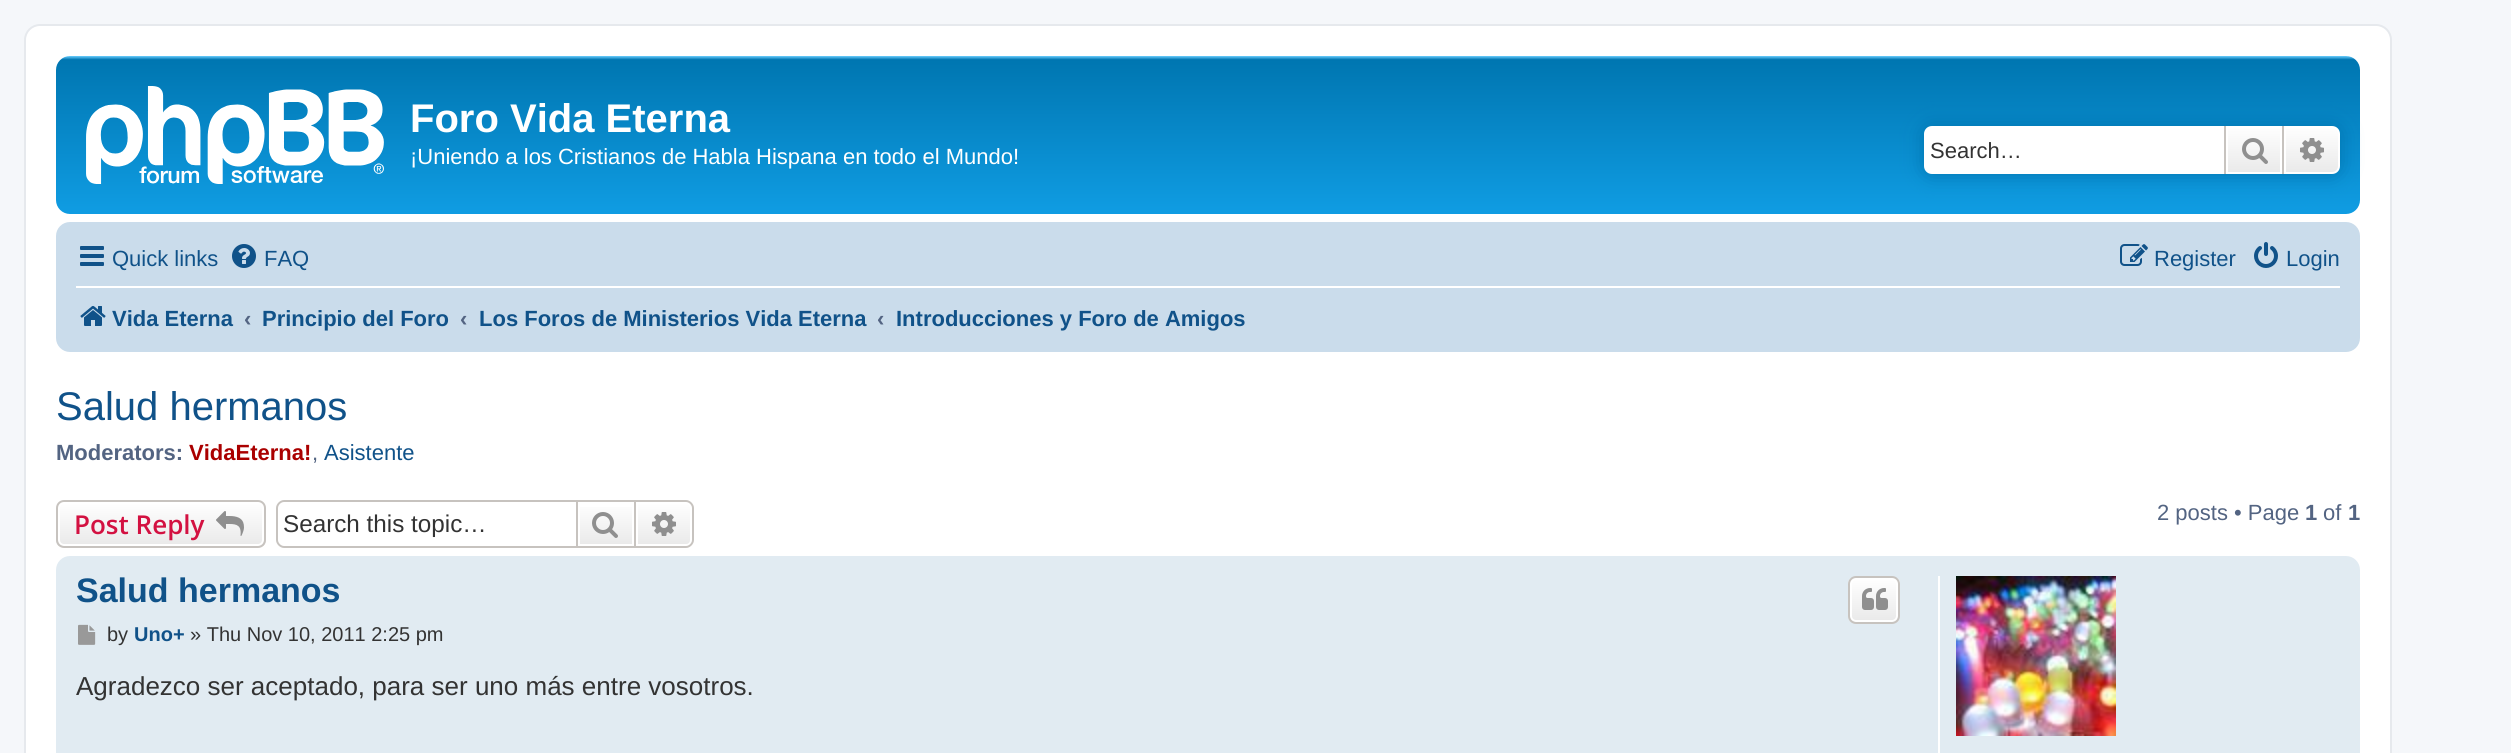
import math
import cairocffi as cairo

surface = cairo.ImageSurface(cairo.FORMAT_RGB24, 2511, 753)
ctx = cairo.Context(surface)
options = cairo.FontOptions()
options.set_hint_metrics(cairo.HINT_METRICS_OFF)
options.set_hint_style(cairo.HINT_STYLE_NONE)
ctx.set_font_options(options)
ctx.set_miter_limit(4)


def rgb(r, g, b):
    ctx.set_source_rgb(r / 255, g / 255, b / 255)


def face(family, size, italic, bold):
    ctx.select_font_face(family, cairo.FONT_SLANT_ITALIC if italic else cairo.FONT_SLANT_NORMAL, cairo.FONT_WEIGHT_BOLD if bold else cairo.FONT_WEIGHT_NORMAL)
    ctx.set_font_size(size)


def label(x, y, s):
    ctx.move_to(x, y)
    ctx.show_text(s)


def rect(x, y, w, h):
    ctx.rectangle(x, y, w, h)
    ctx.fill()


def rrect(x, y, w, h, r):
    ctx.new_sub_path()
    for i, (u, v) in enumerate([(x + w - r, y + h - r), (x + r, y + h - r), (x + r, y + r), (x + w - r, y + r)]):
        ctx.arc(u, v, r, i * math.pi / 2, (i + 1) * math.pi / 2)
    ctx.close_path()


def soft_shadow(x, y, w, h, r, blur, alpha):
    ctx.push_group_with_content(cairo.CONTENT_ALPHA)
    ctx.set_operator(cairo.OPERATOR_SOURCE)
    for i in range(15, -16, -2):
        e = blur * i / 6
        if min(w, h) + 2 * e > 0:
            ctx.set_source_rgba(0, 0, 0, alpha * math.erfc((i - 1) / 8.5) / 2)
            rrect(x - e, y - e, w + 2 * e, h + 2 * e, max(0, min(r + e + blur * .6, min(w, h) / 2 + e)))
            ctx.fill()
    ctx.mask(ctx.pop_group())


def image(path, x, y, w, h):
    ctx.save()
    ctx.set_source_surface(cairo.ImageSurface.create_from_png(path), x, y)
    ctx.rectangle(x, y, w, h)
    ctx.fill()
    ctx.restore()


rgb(245, 247, 250)
ctx.paint()
rgb(255, 255, 255)
rrect(25, 25, 2366, 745, 15)
ctx.fill_preserve()
rgb(230, 233, 237)
ctx.stroke()
gradient = cairo.LinearGradient(1208, 56, 1208, 240)
gradient.add_color_stop_rgba(0, 0.416, 0.808, 1, 1)
gradient.add_color_stop_rgba(0.02, 0, 0.463, 0.694, 1)
gradient.add_color_stop_rgba(1, 0.071, 0.639, 0.922, 1)
ctx.set_source(gradient)
rrect(56, 56, 2304, 158, 14)
ctx.fill()
image('image0.png', 86, 86, 298, 98)
face('Liberation Sans', 40, 0, 1)
rgb(255, 255, 255)
label(410, 132, 'Foro Vida Eterna')
face('Liberation Sans', 22, 0, 0)
label(410, 164, '¡Uniendo a los Cristianos de Habla Hispana en todo el Mundo!')
rgb(0, 117, 176)
soft_shadow(1924, 126, 416, 48, 8, 10, 1)
rgb(255, 255, 255)
ctx.new_path()
ctx.move_to(1932, 126)
ctx.line_to(2224, 126)
ctx.line_to(2224, 174)
ctx.line_to(1932, 174)
ctx.curve_to(1927.5, 174, 1924, 170.5, 1924, 166)
ctx.line_to(1924, 134)
ctx.curve_to(1924, 129.5, 1927.5, 126, 1932, 126)
ctx.close_path()
ctx.fill()
rgb(51, 51, 51)
label(1930, 158, 'Search…')
gradient = cairo.LinearGradient(2254, 126, 2254, 174)
gradient.add_color_stop_rgba(0, 1, 1, 1, 1)
gradient.add_color_stop_rgba(1, 0.914, 0.914, 0.914, 1)
ctx.set_source(gradient)
rect(2228, 128, 52, 44)
ctx.rectangle(2227, 127, 54, 46)
rgb(255, 255, 255)
ctx.stroke()
rgb(199, 195, 191)
rect(2282, 126, 2, 48)
rect(2224, 126, 2, 48)
image('image1.png', 2242, 138, 26, 26)
gradient = cairo.LinearGradient(2312, 126, 2312, 174)
gradient.add_color_stop_rgba(0, 1, 1, 1, 1)
gradient.add_color_stop_rgba(1, 0.914, 0.914, 0.914, 1)
ctx.set_source(gradient)
ctx.new_path()
ctx.move_to(2285, 127)
ctx.line_to(2332, 127)
ctx.curve_to(2336, 127, 2339, 130, 2339, 134)
ctx.line_to(2339, 166)
ctx.curve_to(2339, 170, 2336, 173, 2332, 173)
ctx.line_to(2285, 173)
ctx.close_path()
ctx.fill_preserve()
rgb(255, 255, 255)
ctx.stroke()
image('image2.png', 2300, 138, 24, 24)
rgb(202, 220, 235)
rrect(56, 222, 2304, 130, 14)
ctx.fill()
image('image3.png', 80, 246, 24, 20)
rgb(16, 82, 137)
label(112, 266, 'Quick links')
image('image4.png', 232, 244, 24, 24)
label(264, 266, 'FAQ')
image('image5.png', 2120, 244, 28, 22)
label(2154, 266, 'Register')
image('image6.png', 2254, 242, 24, 26)
label(2286, 266, 'Login')
rgb(255, 255, 255)
rect(76, 286, 2264, 2)
image('image7.png', 80, 306, 26, 20)
face('Liberation Sans', 22, 0, 1)
rgb(16, 82, 137)
label(112, 326, 'Vida Eterna')
rgb(83, 100, 130)
label(244, 326, '‹')
rgb(16, 82, 137)
label(262, 326, 'Principio del Foro')
rgb(83, 100, 130)
label(460, 326, '‹')
rgb(16, 82, 137)
label(479, 326, 'Los Foros de Ministerios Vida Eterna')
rgb(83, 100, 130)
label(877, 326, '‹')
rgb(16, 82, 137)
label(896, 326, 'Introducciones y Foro de Amigos')
face('Liberation Sans', 40, 0, 0)
label(56, 420, 'Salud hermanos')
face('Liberation Sans', 22, 0, 1)
rgb(83, 100, 130)
label(56, 460, 'Moderators:')
rgb(170, 0, 0)
label(189, 460, 'VidaEterna!')
face('Liberation Sans', 22, 0, 0)
rgb(83, 100, 130)
label(312, 460, ',')
rgb(16, 82, 137)
label(324, 460, 'Asistente')
ctx.save()
rrect(56, 500, 210, 48, 8)
ctx.clip()
gradient = cairo.LinearGradient(161, 502, 161, 546)
gradient.add_color_stop_rgba(0, 1, 1, 1, 1)
gradient.add_color_stop_rgba(1, 0.914, 0.914, 0.914, 1)
ctx.set_source(gradient)
rect(56, 502, 210, 44)
ctx.restore()
rrect(59, 503, 204, 42, 5)
rgb(255, 255, 255)
ctx.stroke()
rrect(57, 501, 208, 46, 7)
rgb(199, 195, 191)
ctx.stroke()
face('Open Sans SemiBold', 26, 0, 0)
rgb(211, 17, 65)
label(74, 534, 'Post Reply')
image('image8.png', 216, 511, 28, 25)
rgb(199, 195, 191)
ctx.set_fill_rule(cairo.FILL_RULE_EVEN_ODD)
ctx.new_path()
ctx.move_to(284, 500)
ctx.line_to(576, 500)
ctx.line_to(576, 548)
ctx.line_to(284, 548)
ctx.curve_to(280, 548, 276, 544, 276, 540)
ctx.line_to(276, 508)
ctx.curve_to(276, 504, 280, 500, 284, 500)
ctx.close_path()
ctx.move_to(284, 502)
ctx.line_to(576, 502)
ctx.line_to(576, 546)
ctx.line_to(284, 546)
ctx.curve_to(281, 546, 278, 543, 278, 540)
ctx.line_to(278, 508)
ctx.curve_to(278, 505, 281, 502, 284, 502)
ctx.close_path()
ctx.fill()
face('Liberation Sans', 24.25, 0, 0)
rgb(51, 51, 51)
label(283, 532, 'Search this topic…')
gradient = cairo.LinearGradient(606, 502, 606, 546)
gradient.add_color_stop_rgba(0, 1, 1, 1, 1)
gradient.add_color_stop_rgba(1, 0.914, 0.914, 0.914, 1)
ctx.set_source(gradient)
rect(580, 507, 52, 37)
ctx.rectangle(577, 501, 58, 46)
rgb(199, 195, 191)
ctx.stroke()
image('image9.png', 592, 512, 26, 26)
gradient = cairo.LinearGradient(664, 502, 664, 546)
gradient.add_color_stop_rgba(0, 1, 1, 1, 1)
gradient.add_color_stop_rgba(1, 0.914, 0.914, 0.914, 1)
ctx.set_source(gradient)
ctx.new_path()
ctx.move_to(637, 503)
ctx.line_to(686, 503)
ctx.curve_to(689, 503, 691, 505, 691, 508)
ctx.line_to(691, 540)
ctx.curve_to(691, 543, 689, 545, 686, 545)
ctx.line_to(637, 545)
ctx.close_path()
ctx.fill_preserve()
rgb(255, 255, 255)
ctx.stroke()
rgb(199, 195, 191)
ctx.new_path()
ctx.move_to(636, 500)
ctx.line_to(686, 500)
ctx.curve_to(690, 500, 694, 504, 694, 508)
ctx.line_to(694, 540)
ctx.curve_to(694, 544, 690, 548, 686, 548)
ctx.line_to(636, 548)
ctx.close_path()
ctx.move_to(636, 502)
ctx.line_to(686, 502)
ctx.curve_to(689, 502, 692, 505, 692, 508)
ctx.line_to(692, 540)
ctx.curve_to(692, 543, 689, 546, 686, 546)
ctx.line_to(636, 546)
ctx.close_path()
ctx.fill()
image('image10.png', 652, 512, 24, 24)
face('Liberation Sans', 22, 0, 0)
rgb(83, 100, 130)
label(2157, 520, '2 posts • Page')
face('Liberation Sans', 22, 0, 1)
label(2305, 520, '1')
face('Liberation Sans', 22, 0, 0)
label(2323, 520, 'of')
face('Liberation Sans', 22, 0, 1)
label(2348, 520, '1')
rgb(225, 235, 242)
rrect(56, 556, 2304, 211, 14)
ctx.fill()
face('Liberation Sans', 34, 0, 1)
rgb(16, 82, 137)
label(76, 602, 'Salud hermanos')
ctx.save()
ctx.set_fill_rule(cairo.FILL_RULE_WINDING)
rrect(1848, 576, 52, 48, 8)
ctx.clip()
gradient = cairo.LinearGradient(1874, 578, 1874, 622)
gradient.add_color_stop_rgba(0, 1, 1, 1, 1)
gradient.add_color_stop_rgba(1, 0.914, 0.914, 0.914, 1)
ctx.set_source(gradient)
rect(1848, 578, 52, 44)
ctx.restore()
rrect(1851, 579, 46, 42, 5)
rgb(255, 255, 255)
ctx.stroke()
rrect(1849, 577, 50, 46, 7)
rgb(199, 195, 191)
ctx.stroke()
image('image11.png', 1862, 588, 26, 22)
image('image12.png', 78, 624, 18, 21)
face('Liberation Sans', 20, 0, 0)
rgb(51, 51, 51)
label(107, 641, 'by')
face('Liberation Sans', 20, 0, 1)
rgb(16, 82, 137)
label(134, 641, 'Uno+')
face('Liberation Sans', 20, 0, 0)
rgb(51, 51, 51)
label(190, 641, '» Thu Nov 10, 2011 2:25 pm')
face('Liberation Sans', 26, 0, 0)
label(76, 695, 'Agradezco ser aceptado, para ser uno más entre vosotros.')
rgb(255, 255, 255)
rect(1938, 576, 2, 177)
image('image13.png', 1956, 576, 160, 160)
surface.write_to_png('render.png')
